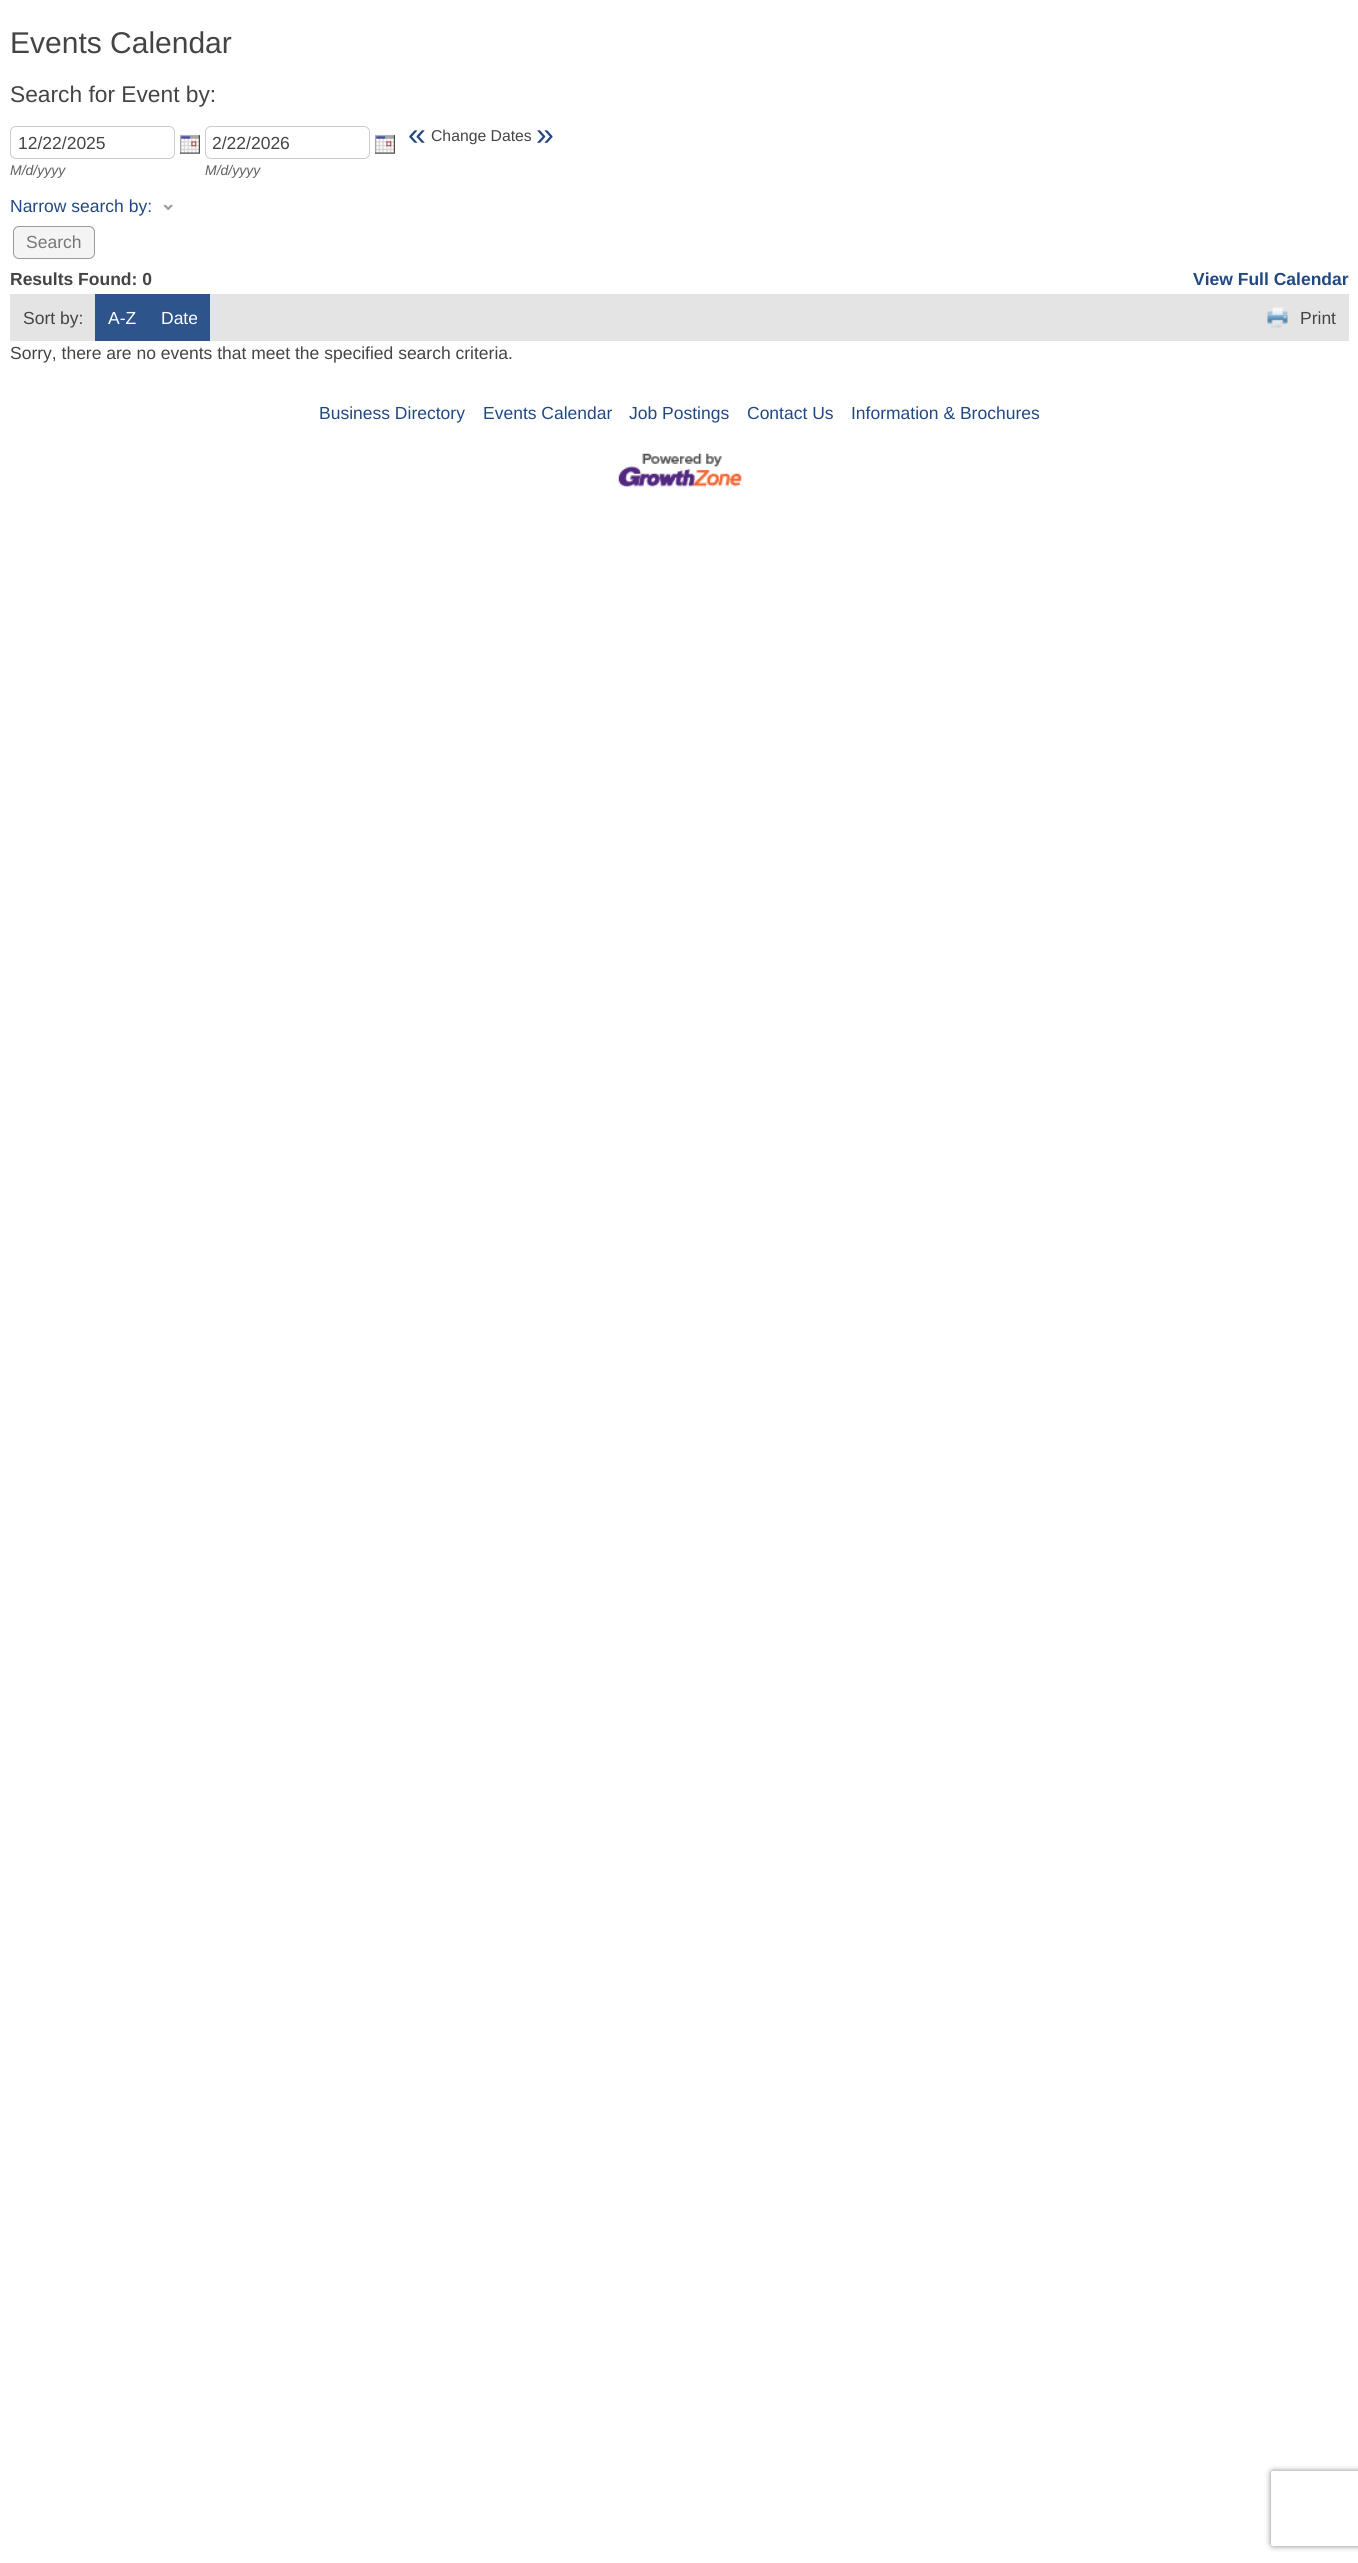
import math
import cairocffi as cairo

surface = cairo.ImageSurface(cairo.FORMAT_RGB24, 1358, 2563)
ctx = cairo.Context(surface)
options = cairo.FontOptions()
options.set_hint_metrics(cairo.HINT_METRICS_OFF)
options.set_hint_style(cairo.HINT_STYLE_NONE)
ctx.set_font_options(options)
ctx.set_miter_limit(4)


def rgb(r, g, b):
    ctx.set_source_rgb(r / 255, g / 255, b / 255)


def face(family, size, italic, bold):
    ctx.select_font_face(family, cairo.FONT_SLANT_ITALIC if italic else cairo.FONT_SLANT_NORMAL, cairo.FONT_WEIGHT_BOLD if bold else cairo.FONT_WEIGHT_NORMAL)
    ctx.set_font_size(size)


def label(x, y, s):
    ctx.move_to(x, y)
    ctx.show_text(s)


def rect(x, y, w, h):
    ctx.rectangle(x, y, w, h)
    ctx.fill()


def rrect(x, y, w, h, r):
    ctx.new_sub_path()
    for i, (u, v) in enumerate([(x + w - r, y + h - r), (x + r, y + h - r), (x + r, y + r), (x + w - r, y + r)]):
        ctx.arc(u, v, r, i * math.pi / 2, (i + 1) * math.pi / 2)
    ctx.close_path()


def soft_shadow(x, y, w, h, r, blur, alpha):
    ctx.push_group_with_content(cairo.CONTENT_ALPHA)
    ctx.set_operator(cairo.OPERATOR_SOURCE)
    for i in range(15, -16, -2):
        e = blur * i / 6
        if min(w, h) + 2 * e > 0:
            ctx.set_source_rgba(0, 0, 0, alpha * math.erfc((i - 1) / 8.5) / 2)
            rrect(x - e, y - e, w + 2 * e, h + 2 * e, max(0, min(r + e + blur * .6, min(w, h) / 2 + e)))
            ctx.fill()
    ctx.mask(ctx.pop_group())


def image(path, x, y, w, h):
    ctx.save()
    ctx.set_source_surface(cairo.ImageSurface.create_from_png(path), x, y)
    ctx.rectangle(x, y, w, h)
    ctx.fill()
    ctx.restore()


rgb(255, 255, 255)
ctx.paint()
face('Liberation Sans', 30, 0, 0)
rgb(68, 68, 68)
label(10, 53, 'Events Calendar')
face('Liberation Sans', 22.75, 0, 0)
label(10, 102, 'Search for Event by:')
rrect(10.5, 126.5, 164, 32, 5.5)
rgb(204, 204, 204)
ctx.set_line_width(1)
ctx.stroke()
face('Liberation Sans', 17.5, 0, 0)
rgb(68, 68, 68)
label(18, 149, '12/22/2025')
image('image0.png', 180, 134, 20, 20)
face('Liberation Sans', 14, 1, 0)
rgb(94, 94, 94)
label(10, 175, 'M/d/yyyy')
rrect(205.5, 126.5, 164, 32, 5.5)
rgb(204, 204, 204)
ctx.stroke()
face('Liberation Sans', 17.5, 0, 0)
rgb(68, 68, 68)
label(212, 149, '2/22/2026')
image('image0.png', 375, 134, 20, 20)
face('Liberation Sans', 14, 1, 0)
rgb(94, 94, 94)
label(205, 175, 'M/d/yyyy')
face('Liberation Sans', 32, 0, 0)
rgb(34, 72, 132)
label(408, 145, '«')
face('Liberation Sans', 15.75, 0, 0)
rgb(68, 68, 68)
label(431, 141, 'Change Dates')
face('Liberation Sans', 32, 0, 0)
rgb(34, 72, 132)
label(536, 145, '»')
face('Liberation Sans', 17.5, 0, 0)
label(10, 212, 'Narrow search by:')
image('image1.png', 163, 204, 10, 7)
rgb(244, 244, 244)
rrect(13.5, 226.5, 81, 32, 5.5)
ctx.fill_preserve()
rgb(153, 153, 153)
ctx.stroke()
rgb(119, 119, 119)
label(26, 248, 'Search')
face('Liberation Sans', 17.5, 0, 1)
rgb(68, 68, 68)
label(10, 285, 'Results Found: 0')
rgb(34, 72, 132)
label(1193, 285, 'View Full Calendar')
rgb(228, 228, 228)
rect(10, 294, 1339, 47)
face('Liberation Sans', 17.5, 0, 0)
rgb(68, 68, 68)
label(23, 324, 'Sort by:')
rgb(45, 84, 139)
rect(95, 294, 115, 47)
rgb(255, 255, 255)
label(108, 324, 'A-Z')
label(161, 324, 'Date')
image('image2.png', 1267, 307, 21, 21)
rgb(68, 68, 68)
label(1300, 324, 'Print')
label(10, 359, 'Sorry, there are no events that meet the specified search criteria.')
rgb(34, 72, 132)
label(319, 419, 'Business Directory')
label(483, 419, 'Events Calendar')
label(629, 419, 'Job Postings')
label(747, 419, 'Contact Us')
label(851, 419, 'Information & Brochures')
image('image3.png', 618, 453, 124, 34)
ctx.save()
ctx.set_fill_rule(cairo.FILL_RULE_EVEN_ODD)
ctx.new_path()
ctx.move_to(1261, 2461)
ctx.line_to(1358, 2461)
ctx.line_to(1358, 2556)
ctx.line_to(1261, 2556)
ctx.close_path()
ctx.move_to(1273.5, 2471)
ctx.line_to(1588.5, 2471)
ctx.curve_to(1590, 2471, 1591, 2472, 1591, 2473.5)
ctx.line_to(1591, 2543.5)
ctx.curve_to(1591, 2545, 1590, 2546, 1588.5, 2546)
ctx.line_to(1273.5, 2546)
ctx.curve_to(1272, 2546, 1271, 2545, 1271, 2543.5)
ctx.line_to(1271, 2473.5)
ctx.curve_to(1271, 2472, 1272, 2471, 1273.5, 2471)
ctx.close_path()
ctx.clip()
rgb(128, 128, 128)
soft_shadow(1271, 2471, 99, 75, 2.5, 3, 1)
ctx.restore()
surface.write_to_png('render.png')
